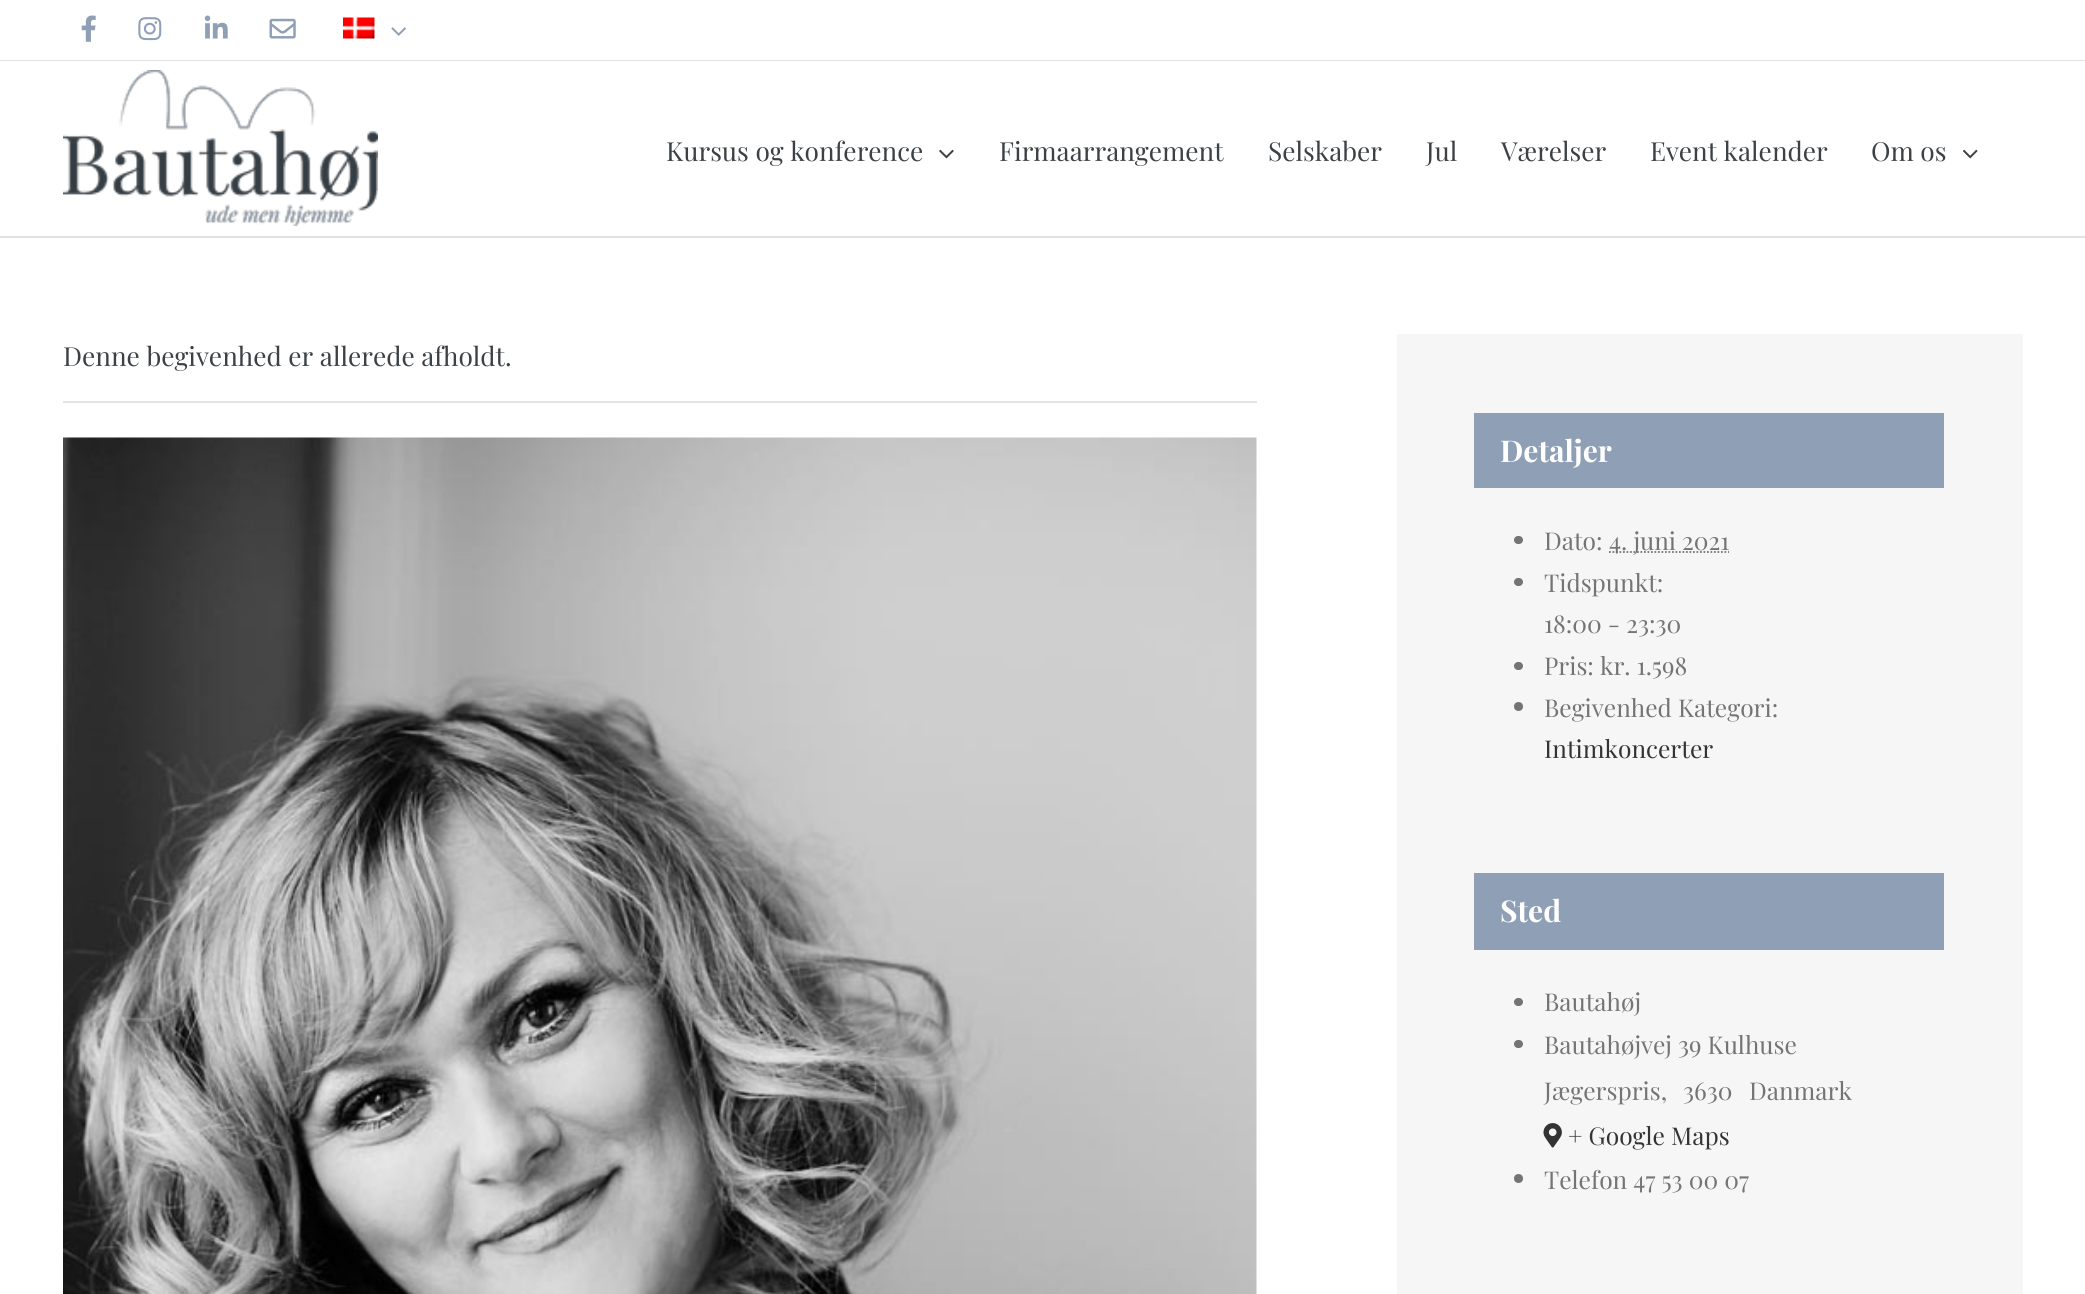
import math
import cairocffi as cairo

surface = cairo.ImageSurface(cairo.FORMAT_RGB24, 2085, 1294)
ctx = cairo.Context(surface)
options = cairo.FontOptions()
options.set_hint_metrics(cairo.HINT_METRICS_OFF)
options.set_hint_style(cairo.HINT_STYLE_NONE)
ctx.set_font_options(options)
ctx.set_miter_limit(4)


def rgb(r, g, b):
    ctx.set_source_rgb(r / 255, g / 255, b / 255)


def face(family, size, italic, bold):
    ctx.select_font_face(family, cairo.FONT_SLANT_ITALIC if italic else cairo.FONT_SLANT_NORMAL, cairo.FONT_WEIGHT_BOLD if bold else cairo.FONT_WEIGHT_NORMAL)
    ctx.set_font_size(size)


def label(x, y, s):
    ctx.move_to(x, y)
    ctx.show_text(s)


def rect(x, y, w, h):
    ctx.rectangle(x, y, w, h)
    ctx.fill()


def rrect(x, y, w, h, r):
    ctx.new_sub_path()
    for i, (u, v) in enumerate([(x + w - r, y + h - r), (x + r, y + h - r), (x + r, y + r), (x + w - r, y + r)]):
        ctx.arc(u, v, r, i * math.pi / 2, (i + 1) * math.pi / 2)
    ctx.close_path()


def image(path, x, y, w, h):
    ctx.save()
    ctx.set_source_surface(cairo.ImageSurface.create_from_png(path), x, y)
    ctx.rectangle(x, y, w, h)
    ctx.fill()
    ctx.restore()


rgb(255, 255, 255)
ctx.paint()
rgb(226, 226, 226)
rect(0, 60, 2085, 1)
image('image0.png', 81, 15, 15, 27)
image('image1.png', 138, 17, 24, 24)
image('image2.png', 204, 15, 24, 24)
image('image3.png', 269, 18, 27, 21)
image('image4.png', 343, 17, 32, 22)
image('image5.png', 391, 27, 15, 9)
rect(0, 236, 2085, 2)
image('image6.png', 63, 70, 315, 156)
face('Playfair Display', 26.25, 0, 0)
rgb(60, 65, 70)
label(666, 161, 'Kursus og konference')
image('image7.png', 939, 149, 15, 10)
label(999, 161, 'Firmaarrangement')
label(1268, 161, 'Selskaber')
label(1426, 161, 'Jul')
label(1501, 161, 'Værelser')
label(1650, 161, 'Event kalender')
label(1871, 161, 'Om os')
image('image8.png', 1963, 149, 15, 10)
rgb(228, 228, 228)
rect(63, 401, 1194, 2)
rgb(60, 65, 70)
label(63, 366, 'Denne begivenhed er allerede afholdt.')
image('image9.png', 63, 437, 1194, 857)
rgb(246, 246, 246)
rect(1397, 334, 626, 960)
rgb(143, 159, 181)
rect(1474, 413, 470, 75)
face('Playfair Display', 30, 0, 1)
rgb(255, 255, 255)
label(1500, 462, 'Detaljer')
rgb(116, 116, 116)
rrect(1514, 536, 9, 8, 4)
ctx.fill()
face('Playfair Display', 24.5, 0, 0)
label(1544, 550, 'Dato:')
ctx.new_path()
ctx.move_to(1609, 552)
ctx.line_to(1729, 552)
ctx.set_line_width(1.8)
ctx.set_dash([1.75, 1.75])
ctx.stroke()
label(1609, 550, '4. juni 2021')
rrect(1514, 578, 9, 8, 4)
ctx.fill()
label(1544, 592, 'Tidspunkt:')
label(1544, 633, '18:00 - 23:30')
rrect(1514, 662, 9, 8, 4)
ctx.fill()
label(1544, 675, 'Pris: kr. 1.598')
ctx.new_path()
ctx.arc(1518.5, 706.5, 4.5, 0, 2 * math.pi)
ctx.fill()
label(1544, 717, 'Begivenhed Kategori:')
rgb(51, 51, 51)
label(1544, 758, 'Intimkoncerter')
rgb(143, 159, 181)
rect(1474, 873, 470, 77)
face('Playfair Display', 30, 0, 1)
rgb(255, 255, 255)
label(1500, 922, 'Sted')
rgb(116, 116, 116)
rrect(1514, 998, 9, 8, 4)
ctx.fill()
face('Playfair Display', 24.5, 0, 0)
label(1544, 1011, 'Bautahøj')
rrect(1514, 1040, 9, 8, 4)
ctx.fill()
label(1544, 1054, 'Bautahøjvej 39 Kulhuse')
label(1544, 1100, 'Jægerspris,')
label(1683, 1100, '3630')
label(1749, 1100, 'Danmark')
image('image10.png', 1543, 1123, 19, 25)
rgb(51, 51, 51)
label(1568, 1145, '+ Google Maps')
rgb(116, 116, 116)
ctx.new_path()
ctx.arc(1518.5, 1178.5, 4.5, 0, 2 * math.pi)
ctx.fill()
label(1544, 1189, 'Telefon 47 53 00 07')
surface.write_to_png('render.png')
